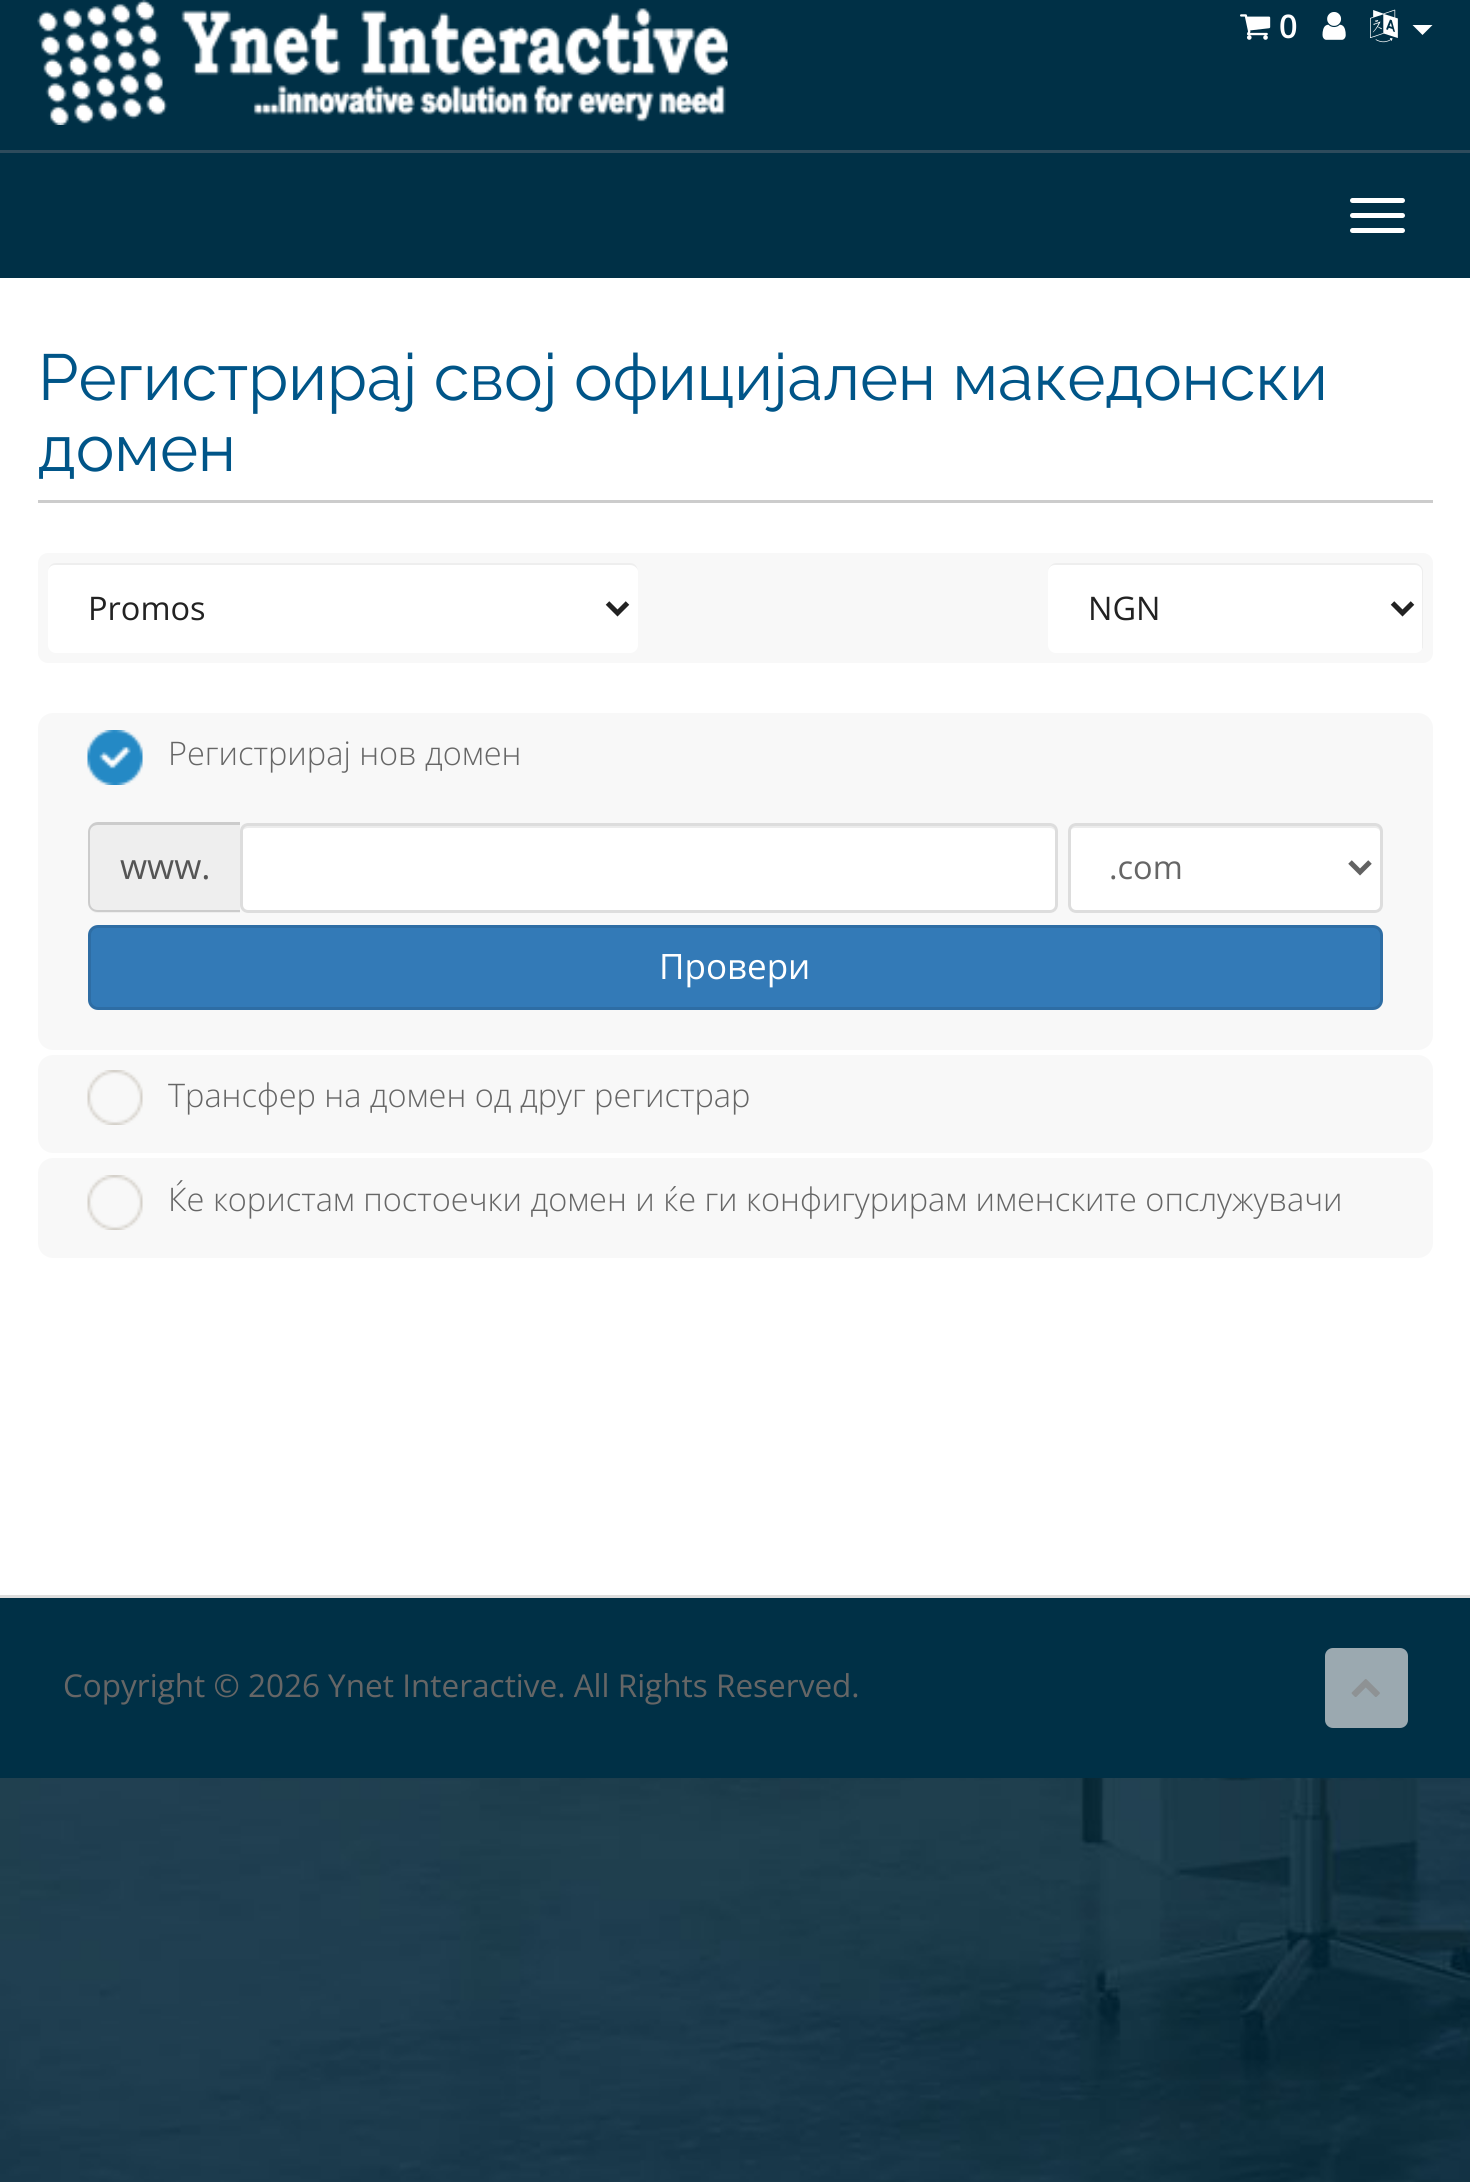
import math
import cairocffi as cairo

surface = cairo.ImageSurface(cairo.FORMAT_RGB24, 1470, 2182)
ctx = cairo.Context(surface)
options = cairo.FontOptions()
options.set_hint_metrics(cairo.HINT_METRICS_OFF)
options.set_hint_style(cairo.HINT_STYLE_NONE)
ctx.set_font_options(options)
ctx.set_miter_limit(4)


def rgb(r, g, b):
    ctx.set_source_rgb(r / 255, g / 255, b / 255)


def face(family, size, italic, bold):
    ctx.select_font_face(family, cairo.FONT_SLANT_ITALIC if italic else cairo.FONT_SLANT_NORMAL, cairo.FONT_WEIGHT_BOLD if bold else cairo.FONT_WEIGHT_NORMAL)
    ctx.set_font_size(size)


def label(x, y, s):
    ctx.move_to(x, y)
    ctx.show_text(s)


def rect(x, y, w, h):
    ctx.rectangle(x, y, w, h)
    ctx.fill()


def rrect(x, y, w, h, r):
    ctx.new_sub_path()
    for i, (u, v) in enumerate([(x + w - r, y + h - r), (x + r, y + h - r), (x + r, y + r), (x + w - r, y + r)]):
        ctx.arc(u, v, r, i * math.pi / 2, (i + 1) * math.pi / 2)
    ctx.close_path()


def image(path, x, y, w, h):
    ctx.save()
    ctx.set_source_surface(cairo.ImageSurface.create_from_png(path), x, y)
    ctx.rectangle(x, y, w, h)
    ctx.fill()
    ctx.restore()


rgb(255, 255, 255)
ctx.paint()
image('image0.png', 0, 1778, 1470, 404)
rgb(0, 48, 70)
rect(0, 0, 1470, 150)
image('image1.png', 37, 0, 691, 125)
image('image2.png', 1240, 14, 31, 26)
face('Open Sans SemiBold', 32.5, 0, 0)
rgb(255, 255, 255)
label(1279, 38, '0')
image('image3.png', 1322, 12, 24, 28)
image('image4.png', 1370, 9, 28, 34)
ctx.new_path()
ctx.move_to(1412.5, 25)
ctx.line_to(1432.5, 25)
ctx.line_to(1422.5, 35)
ctx.close_path()
ctx.fill()
rgb(0, 48, 70)
rect(0, 153, 1470, 125)
rgb(46, 75, 92)
rect(0, 150, 1470, 3)
rgb(255, 255, 255)
rrect(1350, 198, 55, 5, 2.5)
ctx.fill()
rrect(1350, 213, 55, 5, 2.5)
ctx.fill()
rrect(1350, 228, 55, 5, 2.5)
ctx.fill()
rgb(204, 204, 204)
rect(38, 500, 1395, 3)
face('Raleway', 65, 0, 0)
rgb(0, 85, 136)
label(38, 400, 'Регистрирај свој официјален македонски')
label(38, 471, 'домен')
rgb(248, 248, 248)
rrect(38, 553, 1395, 110, 10)
ctx.fill()
rgb(255, 255, 255)
rrect(48, 563, 590, 90, 8)
ctx.fill()
ctx.set_source_rgba(0, 0, 0, 0.07)
ctx.new_path()
ctx.move_to(55, 565)
ctx.line_to(630, 565)
ctx.curve_to(634, 565, 638, 568, 638, 572)
ctx.curve_to(638, 567, 635, 563, 630, 563)
ctx.line_to(56, 563)
ctx.curve_to(51, 563, 48, 567, 48, 572)
ctx.curve_to(48, 568, 51, 565, 55, 565)
ctx.close_path()
ctx.fill()
ctx.new_path()
ctx.move_to(607.5, 603)
ctx.line_to(617.5, 613)
ctx.line_to(627.5, 603)
rgb(34, 34, 34)
ctx.set_line_width(5)
ctx.stroke()
face('Open Sans', 32.5, 0, 0)
label(88, 620, 'Promos')
rgb(255, 255, 255)
rrect(1048, 563, 375, 90, 8)
ctx.fill()
ctx.set_source_rgba(0, 0, 0, 0.07)
ctx.new_path()
ctx.move_to(1055, 565)
ctx.line_to(1415, 565)
ctx.curve_to(1419, 565, 1422, 568, 1422, 572)
ctx.line_to(1422, 649)
ctx.curve_to(1423, 648, 1423, 646, 1423, 645)
ctx.line_to(1423, 571)
ctx.curve_to(1423, 567, 1419, 563, 1415, 563)
ctx.line_to(1056, 563)
ctx.curve_to(1052, 563, 1048, 567, 1048, 571)
ctx.line_to(1048, 572)
ctx.curve_to(1048, 568, 1051, 565, 1055, 565)
ctx.close_path()
ctx.fill()
ctx.new_path()
ctx.move_to(1392.5, 603)
ctx.line_to(1402.5, 613)
ctx.line_to(1412.5, 603)
rgb(34, 34, 34)
ctx.stroke()
label(1088, 620, 'NGN')
rgb(248, 248, 248)
rrect(38, 713, 1395, 337, 15)
ctx.fill()
image('image5.png', 87, 730, 56, 55)
face('Open Sans Light', 32.5, 0, 0)
rgb(102, 102, 102)
label(168, 765, 'Регистрирај нов домен')
rgb(238, 238, 238)
ctx.new_path()
ctx.move_to(98, 823)
ctx.line_to(240, 823)
ctx.line_to(240, 913)
ctx.line_to(98, 913)
ctx.curve_to(92.5, 913, 88, 908.5, 88, 903)
ctx.line_to(88, 833)
ctx.curve_to(88, 827.5, 92.5, 823, 98, 823)
ctx.close_path()
ctx.fill()
rgb(204, 204, 204)
ctx.set_fill_rule(cairo.FILL_RULE_EVEN_ODD)
ctx.new_path()
ctx.move_to(98, 822)
ctx.line_to(240, 822)
ctx.line_to(240, 912)
ctx.line_to(98, 912)
ctx.curve_to(92, 912, 88, 908, 88, 902)
ctx.line_to(88, 832)
ctx.curve_to(88, 827, 92, 822, 98, 822)
ctx.close_path()
ctx.move_to(98, 825)
ctx.line_to(240, 825)
ctx.line_to(240, 910)
ctx.line_to(98, 910)
ctx.curve_to(93, 910, 90, 907, 90, 902)
ctx.line_to(90, 832)
ctx.curve_to(90, 828, 93, 825, 98, 825)
ctx.close_path()
ctx.fill()
face('Open Sans', 35, 0, 0)
rgb(85, 85, 85)
label(120, 879, 'www.')
rgb(255, 255, 255)
rrect(240, 823, 818, 90, 8)
ctx.fill()
rgb(236, 236, 236)
ctx.set_fill_rule(cairo.FILL_RULE_WINDING)
ctx.new_path()
ctx.move_to(248, 828)
ctx.line_to(1050, 828)
ctx.curve_to(1053, 828, 1055, 830, 1055, 832)
ctx.curve_to(1055, 829, 1054, 825, 1050, 825)
ctx.line_to(248, 825)
ctx.curve_to(245, 825, 243, 827, 243, 830)
ctx.curve_to(244, 829, 246, 828, 248, 828)
ctx.close_path()
ctx.fill()
rrect(241.5, 824.5, 815, 87, 6.5)
rgb(221, 221, 221)
ctx.set_line_width(3)
ctx.stroke()
rgb(255, 255, 255)
rrect(1068, 823, 315, 90, 8)
ctx.fill()
rgb(236, 236, 236)
ctx.new_path()
ctx.move_to(1075, 828)
ctx.line_to(1375, 828)
ctx.curve_to(1378, 828, 1380, 830, 1380, 832)
ctx.line_to(1380, 830)
ctx.curve_to(1380, 827, 1378, 825, 1375, 825)
ctx.line_to(1075, 825)
ctx.curve_to(1072, 825, 1070, 827, 1070, 830)
ctx.line_to(1070, 832)
ctx.curve_to(1070, 830, 1072, 828, 1075, 828)
ctx.close_path()
ctx.fill()
rrect(1069.5, 824.5, 312, 87, 6.5)
rgb(221, 221, 221)
ctx.stroke()
ctx.new_path()
ctx.move_to(1350, 862)
ctx.line_to(1360, 872)
ctx.line_to(1370, 862)
rgb(98, 98, 98)
ctx.set_line_width(5)
ctx.stroke()
face('Open Sans', 32.5, 0, 0)
rgb(102, 102, 102)
label(1109, 879, '.com')
rgb(51, 122, 183)
rrect(89.5, 926.5, 1292, 82, 8.5)
ctx.fill_preserve()
rgb(46, 109, 164)
ctx.set_line_width(3)
ctx.stroke()
face('Open Sans', 35, 0, 0)
rgb(255, 255, 255)
label(659, 979, 'Провери')
rgb(248, 248, 248)
rrect(38, 1055, 1395, 98, 15)
ctx.fill()
image('image6.png', 87, 1070, 56, 55)
face('Open Sans Light', 32.5, 0, 0)
rgb(102, 102, 102)
label(168, 1107, 'Трансфер на домен од друг регистрар')
rgb(248, 248, 248)
rrect(38, 1158, 1395, 100, 15)
ctx.fill()
image('image7.png', 87, 1175, 56, 55)
rgb(102, 102, 102)
label(168, 1211, 'Ќе користам постоечки домен и ќе ги конфигурирам именските опслужувачи')
rgb(0, 48, 70)
rect(0, 1598, 1470, 180)
rgb(221, 221, 221)
rect(0, 1595, 1470, 3)
face('Open Sans', 31.5, 0, 0)
rgb(102, 102, 102)
label(63, 1697, 'Copyright © 2026 Ynet Interactive. All Rights Reserved.')
rgb(155, 169, 176)
rrect(1325, 1648, 83, 80, 8)
ctx.fill()
image('image8.png', 1351, 1679, 29, 18)
surface.write_to_png('render.png')
